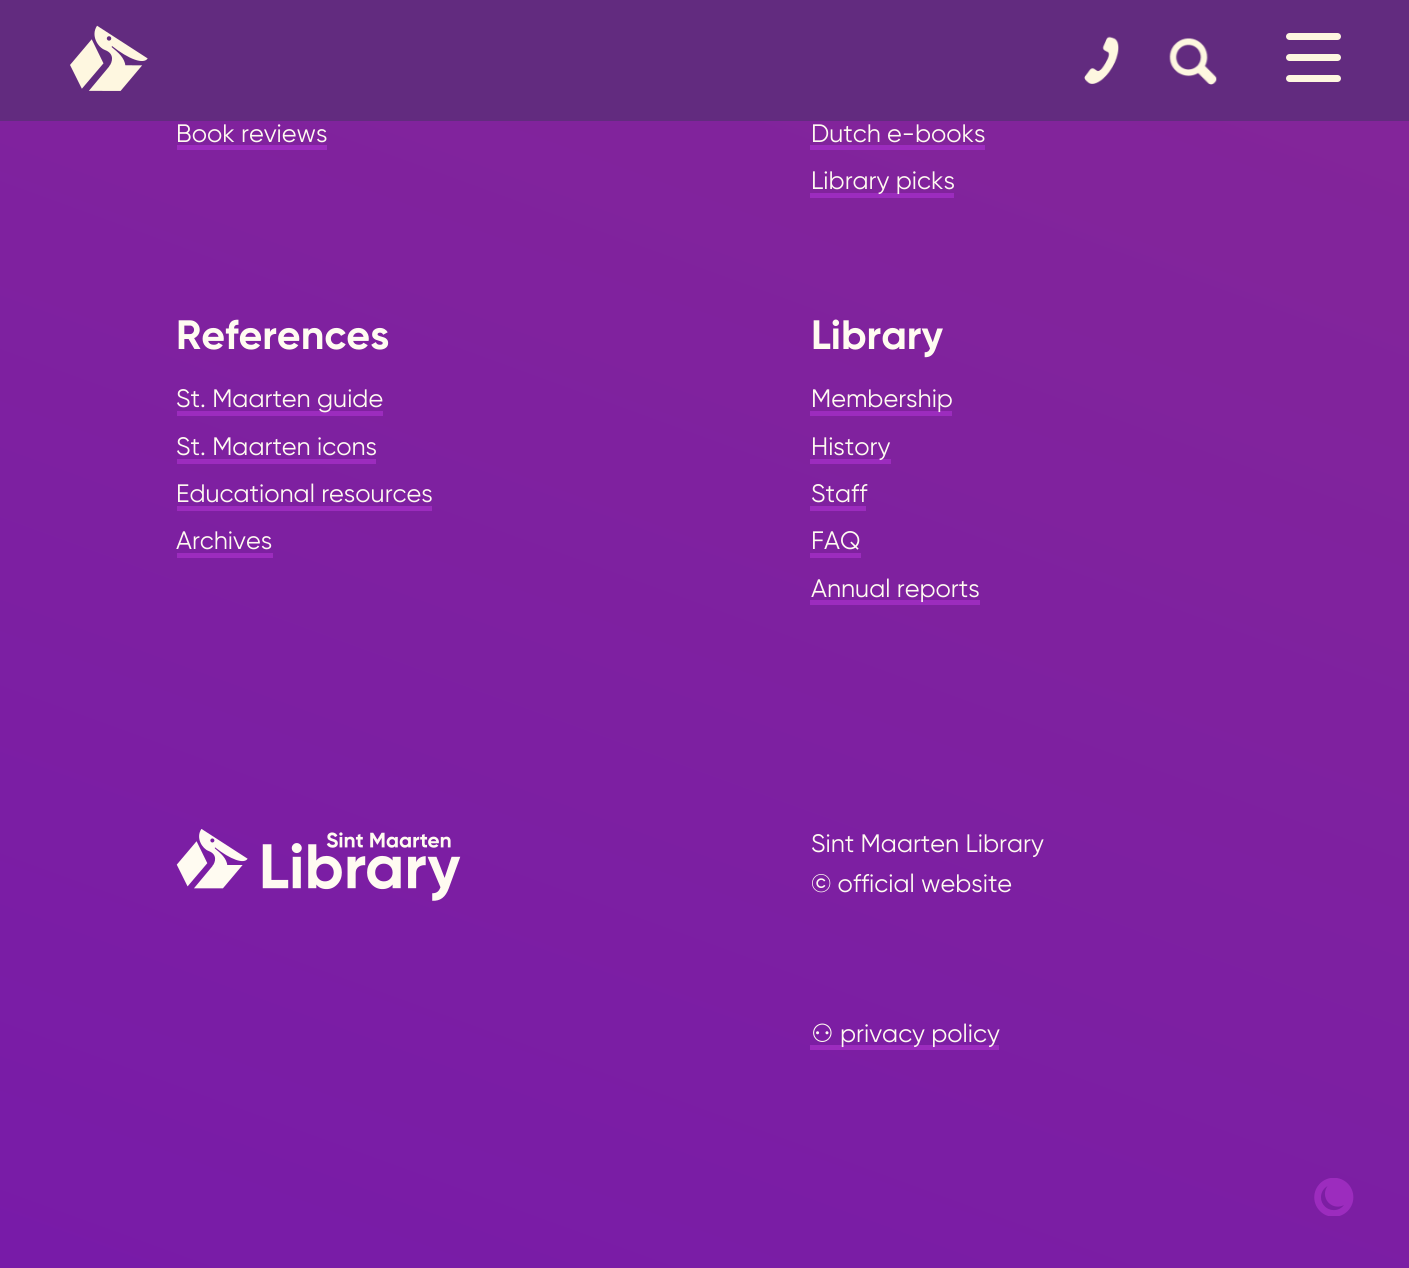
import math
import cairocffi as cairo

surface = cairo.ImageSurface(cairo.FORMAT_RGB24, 1409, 1268)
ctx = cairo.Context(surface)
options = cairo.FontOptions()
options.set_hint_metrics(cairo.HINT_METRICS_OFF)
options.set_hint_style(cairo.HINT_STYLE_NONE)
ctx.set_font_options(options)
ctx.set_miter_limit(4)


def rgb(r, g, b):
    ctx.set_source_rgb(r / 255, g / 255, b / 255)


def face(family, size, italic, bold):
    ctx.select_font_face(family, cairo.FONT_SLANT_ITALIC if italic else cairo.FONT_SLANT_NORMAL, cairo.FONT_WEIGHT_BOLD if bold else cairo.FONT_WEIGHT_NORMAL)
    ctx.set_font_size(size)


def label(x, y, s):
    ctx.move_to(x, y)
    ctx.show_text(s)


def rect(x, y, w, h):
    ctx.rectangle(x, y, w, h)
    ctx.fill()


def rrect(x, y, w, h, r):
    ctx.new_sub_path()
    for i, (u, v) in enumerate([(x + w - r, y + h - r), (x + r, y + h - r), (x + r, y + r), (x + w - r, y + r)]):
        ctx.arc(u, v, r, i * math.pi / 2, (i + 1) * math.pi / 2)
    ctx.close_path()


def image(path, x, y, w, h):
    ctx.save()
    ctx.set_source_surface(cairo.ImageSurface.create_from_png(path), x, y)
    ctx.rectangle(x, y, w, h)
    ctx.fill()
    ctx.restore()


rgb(255, 255, 255)
ctx.paint()
rgb(98, 43, 127)
rect(0, 0, 1409, 121)
image('image0.png', 70, 25, 78, 66)
image('image1.png', 1084, 36, 35, 48)
image('image2.png', 1169, 38, 48, 47)
rgb(254, 247, 224)
rrect(1286, 54, 55, 7, 3.5)
ctx.fill()
rrect(1286, 33, 55, 7, 3.5)
ctx.fill()
rrect(1286, 75, 55, 7, 3.5)
ctx.fill()
gradient = cairo.LinearGradient(244, 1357, 1167, -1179)
gradient.add_color_stop_rgba(0, 0.471, 0.106, 0.659, 1)
gradient.add_color_stop_rgba(1, 0.545, 0.173, 0.561, 1)
ctx.set_source(gradient)
rect(0, 121, 1409, 1147)
face('Gilroy', 25.25, 0, 0)
rgb(255, 251, 241)
label(176, 142, 'Book reviews')
rgb(156, 44, 190)
rect(177, 145, 150, 5)
rgb(255, 251, 241)
label(811, 142, 'Dutch e-books')
rgb(156, 44, 190)
rect(810, 145, 175, 5)
rect(810, 193, 144, 5)
rgb(255, 251, 241)
label(811, 189, 'Library picks')
face('Gilroy', 41, 0, 1)
label(176, 349, 'References')
rgb(156, 44, 190)
rect(177, 411, 206, 5)
face('Gilroy', 25.25, 0, 0)
rgb(255, 251, 241)
label(176, 407, 'St. Maarten guide')
label(176, 455, 'St. Maarten icons')
rgb(156, 44, 190)
rect(177, 459, 199, 5)
rgb(255, 251, 241)
label(176, 502, 'Educational resources')
rgb(156, 44, 190)
rect(177, 506, 255, 5)
rgb(255, 251, 241)
label(176, 549, 'Archives')
rgb(156, 44, 190)
rect(177, 553, 96, 5)
face('Gilroy', 41, 0, 1)
rgb(255, 251, 241)
label(811, 349, 'Library')
rgb(156, 44, 190)
rect(810, 411, 142, 5)
face('Gilroy', 25.25, 0, 0)
rgb(255, 251, 241)
label(811, 407, 'Membership')
rgb(156, 44, 190)
rect(810, 459, 81, 5)
rgb(255, 251, 241)
label(811, 455, 'History')
label(811, 502, 'Staff')
rgb(156, 44, 190)
rect(810, 506, 56, 5)
rgb(255, 251, 241)
label(811, 549, 'FAQ')
rgb(156, 44, 190)
rect(810, 553, 51, 5)
rect(810, 600, 170, 5)
rgb(255, 251, 241)
label(811, 597, 'Annual reports')
image('image3.png', 176, 829, 285, 72)
label(811, 852, 'Sint Maarten Library')
label(811, 892, '© official website')
face('DejaVu Sans', 25.25, 0, 0)
label(811, 1042, '⚇')
rgb(156, 44, 190)
rect(810, 1045, 189, 5)
face('Gilroy', 25.25, 0, 0)
rgb(255, 251, 241)
label(840, 1042, 'privacy policy')
image('image4.png', 1314, 1178, 40, 38)
surface.write_to_png('render.png')
